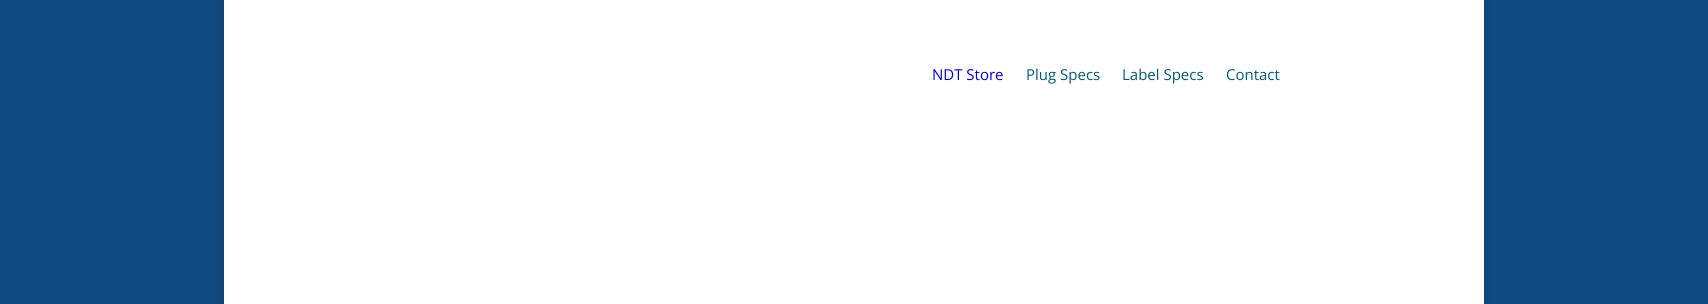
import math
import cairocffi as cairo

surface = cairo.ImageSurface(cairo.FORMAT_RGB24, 1708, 304)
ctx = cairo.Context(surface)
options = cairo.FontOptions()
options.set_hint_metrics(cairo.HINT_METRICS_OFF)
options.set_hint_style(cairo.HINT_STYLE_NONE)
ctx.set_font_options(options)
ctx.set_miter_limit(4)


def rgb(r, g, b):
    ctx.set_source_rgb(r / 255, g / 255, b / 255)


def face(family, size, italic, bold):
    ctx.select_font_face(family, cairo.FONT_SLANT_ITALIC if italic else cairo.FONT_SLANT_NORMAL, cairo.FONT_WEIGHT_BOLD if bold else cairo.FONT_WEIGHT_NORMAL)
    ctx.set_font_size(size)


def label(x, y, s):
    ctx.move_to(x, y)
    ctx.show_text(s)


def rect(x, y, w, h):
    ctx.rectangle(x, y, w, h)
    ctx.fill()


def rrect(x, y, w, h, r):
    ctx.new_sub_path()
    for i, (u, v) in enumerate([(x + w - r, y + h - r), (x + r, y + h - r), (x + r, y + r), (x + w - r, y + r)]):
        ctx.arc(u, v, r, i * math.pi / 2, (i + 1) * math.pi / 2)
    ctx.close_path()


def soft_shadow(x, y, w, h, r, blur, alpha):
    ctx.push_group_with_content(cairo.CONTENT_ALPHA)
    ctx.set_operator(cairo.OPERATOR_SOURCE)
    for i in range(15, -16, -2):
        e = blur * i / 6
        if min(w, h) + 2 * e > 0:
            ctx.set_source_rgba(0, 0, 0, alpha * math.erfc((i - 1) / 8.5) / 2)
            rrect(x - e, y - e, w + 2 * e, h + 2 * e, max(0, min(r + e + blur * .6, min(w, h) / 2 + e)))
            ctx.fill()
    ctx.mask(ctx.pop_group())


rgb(15, 76, 129)
ctx.paint()
rgb(0, 0, 0)
soft_shadow(224, 0, 1260, 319, 0, 5, 0.2)
rgb(255, 255, 255)
rect(224, 0, 1260, 304)
face('Open Sans', 15, 0, 0)
rgb(0, 0, 238)
label(932, 80, 'NDT Store')
rgb(0, 91, 127)
label(1026, 80, 'Plug Specs')
label(1122, 80, 'Label Specs')
label(1226, 80, 'Contact')
surface.write_to_png('render.png')
